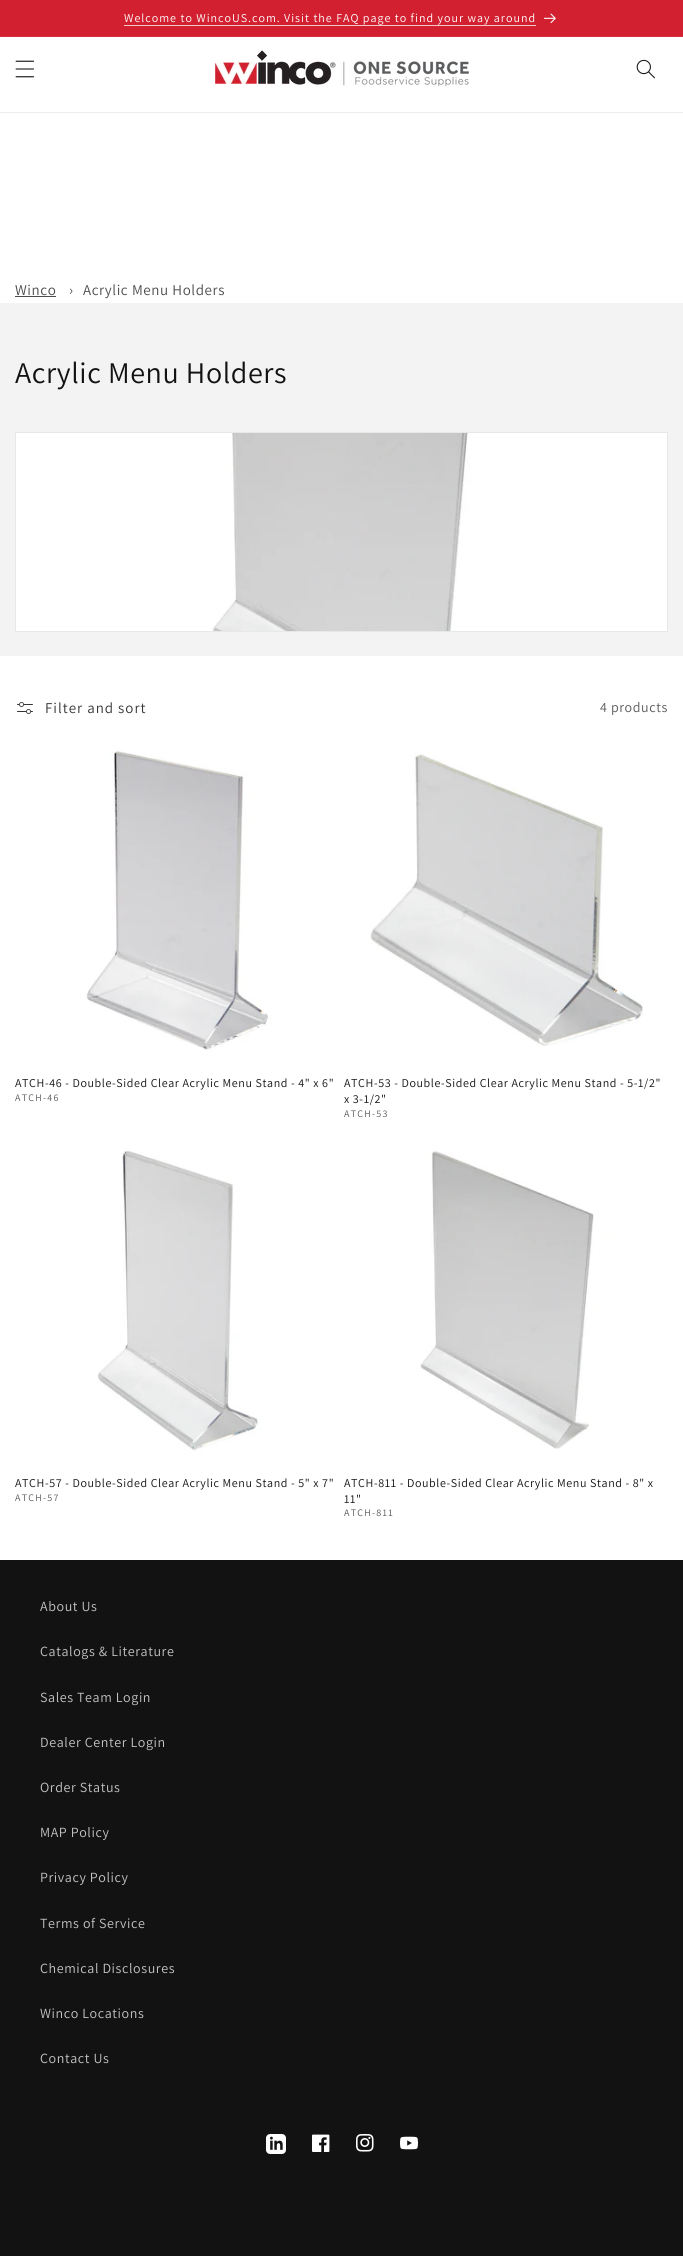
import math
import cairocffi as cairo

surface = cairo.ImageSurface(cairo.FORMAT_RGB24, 683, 2256)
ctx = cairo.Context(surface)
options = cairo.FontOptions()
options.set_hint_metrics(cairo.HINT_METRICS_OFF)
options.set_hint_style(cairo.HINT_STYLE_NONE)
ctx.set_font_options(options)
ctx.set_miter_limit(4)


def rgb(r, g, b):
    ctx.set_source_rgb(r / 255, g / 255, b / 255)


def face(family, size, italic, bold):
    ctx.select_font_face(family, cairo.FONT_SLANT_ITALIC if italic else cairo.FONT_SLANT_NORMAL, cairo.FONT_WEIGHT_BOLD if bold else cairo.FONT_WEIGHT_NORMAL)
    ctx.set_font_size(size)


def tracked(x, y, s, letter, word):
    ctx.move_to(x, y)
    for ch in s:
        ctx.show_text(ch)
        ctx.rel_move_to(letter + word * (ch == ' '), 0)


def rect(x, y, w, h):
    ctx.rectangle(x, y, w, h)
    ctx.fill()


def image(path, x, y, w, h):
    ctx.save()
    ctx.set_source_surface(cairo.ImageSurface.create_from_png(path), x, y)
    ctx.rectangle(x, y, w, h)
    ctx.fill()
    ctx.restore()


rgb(255, 255, 255)
ctx.paint()
rgb(210, 32, 48)
rect(0, 0, 683, 36)
rgb(214, 50, 65)
rect(0, 36, 683, 1)
face('Assistant', 12, 0, 0)
rgb(255, 255, 255)
tracked(124, 22, 'Welcome to WincoUS.com. Visit the FAQ page to find your way around', 1, 0)
rgb(244, 199, 203)
rect(124, 25, 412, 1)
image('image0.png', 544, 13, 12, 10)
rgb(236, 236, 236)
rect(0, 112, 683, 1)
image('image1.png', 15, 60, 20, 18)
image('image2.png', 215, 50, 254, 37)
image('image3.png', 636, 59, 19, 20)
face('Assistant', 15, 0, 0)
rgb(77, 77, 77)
tracked(15, 295, 'Winco', 0.6, 0)
rect(15, 296, 41, 1)
tracked(69, 295, '›', 0.6, 0)
tracked(83, 295, 'Acrylic Menu Holders', 0.6, 0)
rgb(243, 243, 243)
rect(0, 303, 683, 353)
face('Assistant', 30, 0, 0)
rgb(18, 18, 18)
tracked(15, 383, 'Acrylic Menu Holders', 0.6, 0)
ctx.rectangle(15.5, 432.5, 652, 199)
rgb(232, 232, 232)
ctx.set_line_width(1)
ctx.stroke()
image('image4.png', 16, 433, 651, 198)
image('image5.png', 17, 702, 16, 12)
face('Assistant', 15, 0, 0)
rgb(54, 54, 54)
tracked(45, 713, 'Filter and sort', 1, 0)
face('Assistant', 14, 0, 0)
rgb(89, 89, 89)
tracked(600, 712, '4 products', 0.6, 0)
image('image6.png', 15, 738, 325, 324)
face('Assistant', 12, 0, 0)
rgb(18, 18, 18)
tracked(15, 1087, 'ATCH-46 - Double-Sided Clear Acrylic Menu Stand - 4" x 6"', 0.6, 0)
face('Assistant', 10, 0, 0)
rgb(89, 89, 89)
tracked(15, 1101, 'ATCH-46', 1.25, 0)
image('image7.png', 344, 738, 324, 324)
face('Assistant', 12, 0, 0)
rgb(18, 18, 18)
tracked(344, 1087, 'ATCH-53 - Double-Sided Clear Acrylic Menu Stand - 5-1/2"', 0.6, 0)
tracked(344, 1103, 'x 3-1/2"', 0.6, 0)
face('Assistant', 10, 0, 0)
rgb(89, 89, 89)
tracked(344, 1117, 'ATCH-53', 1.25, 0)
image('image8.png', 15, 1138, 325, 324)
face('Assistant', 12, 0, 0)
rgb(18, 18, 18)
tracked(15, 1487, 'ATCH-57 - Double-Sided Clear Acrylic Menu Stand - 5" x 7"', 0.6, 0)
face('Assistant', 10, 0, 0)
rgb(89, 89, 89)
tracked(15, 1501, 'ATCH-57', 1.25, 0)
image('image9.png', 344, 1138, 324, 324)
face('Assistant', 12, 0, 0)
rgb(18, 18, 18)
tracked(344, 1487, 'ATCH-811 - Double-Sided Clear Acrylic Menu Stand - 8" x', 0.6, 0)
tracked(344, 1503, '11"', 0.6, 0)
face('Assistant', 10, 0, 0)
rgb(89, 89, 89)
tracked(344, 1516, 'ATCH-811', 1.25, 0)
rgb(18, 18, 18)
rect(0, 1560, 683, 696)
face('Assistant', 14, 0, 0)
rgb(196, 196, 196)
tracked(40, 1611, 'About Us', 0.6, 0)
tracked(40, 1656, 'Catalogs & Literature', 0.6, 0)
tracked(40, 1702, 'Sales Team Login', 0.6, 0)
tracked(40, 1747, 'Dealer Center Login', 0.6, 0)
tracked(40, 1792, 'Order Status', 0.6, 0)
tracked(40, 1837, 'MAP Policy', 0.6, 0)
tracked(40, 1882, 'Privacy Policy', 0.6, 0)
tracked(40, 1928, 'Terms of Service', 0.6, 0)
tracked(40, 1973, 'Chemical Disclosures', 0.6, 0)
tracked(40, 2018, 'Winco Locations', 0.6, 0)
tracked(40, 2063, 'Contact Us', 0.6, 0)
image('image10.png', 266, 2134, 20, 20)
image('image11.png', 312, 2134, 18, 18)
image('image12.png', 356, 2134, 18, 18)
image('image13.png', 400, 2136, 18, 14)
surface.write_to_png('render.png')
